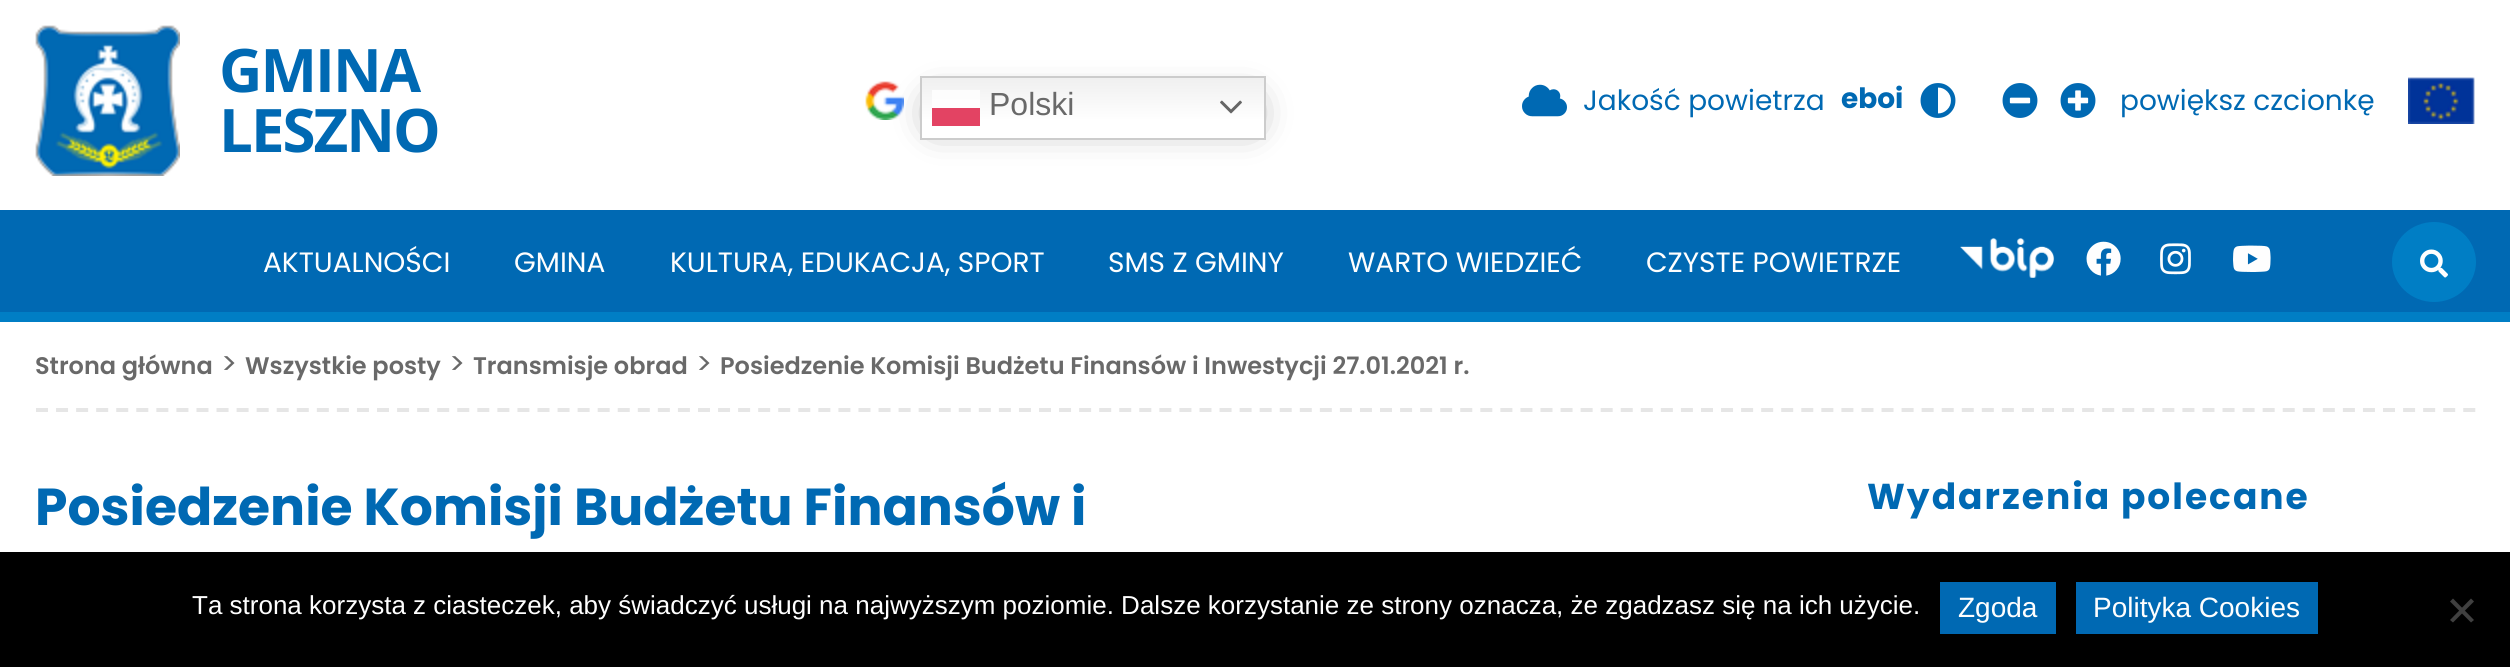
import math
import cairocffi as cairo

surface = cairo.ImageSurface(cairo.FORMAT_RGB24, 2510, 667)
ctx = cairo.Context(surface)
options = cairo.FontOptions()
options.set_hint_metrics(cairo.HINT_METRICS_OFF)
options.set_hint_style(cairo.HINT_STYLE_NONE)
ctx.set_font_options(options)
ctx.set_miter_limit(4)


def rgb(r, g, b):
    ctx.set_source_rgb(r / 255, g / 255, b / 255)


def face(family, size, italic, bold):
    ctx.select_font_face(family, cairo.FONT_SLANT_ITALIC if italic else cairo.FONT_SLANT_NORMAL, cairo.FONT_WEIGHT_BOLD if bold else cairo.FONT_WEIGHT_NORMAL)
    ctx.set_font_size(size)


def label(x, y, s):
    ctx.move_to(x, y)
    ctx.show_text(s)


def tracked(x, y, s, letter, word):
    ctx.move_to(x, y)
    for ch in s:
        ctx.show_text(ch)
        ctx.rel_move_to(letter + word * (ch == ' '), 0)


def rect(x, y, w, h):
    ctx.rectangle(x, y, w, h)
    ctx.fill()


def rrect(x, y, w, h, r):
    ctx.new_sub_path()
    for i, (u, v) in enumerate([(x + w - r, y + h - r), (x + r, y + h - r), (x + r, y + r), (x + w - r, y + r)]):
        ctx.arc(u, v, r, i * math.pi / 2, (i + 1) * math.pi / 2)
    ctx.close_path()


def soft_shadow(x, y, w, h, r, blur, alpha):
    ctx.push_group_with_content(cairo.CONTENT_ALPHA)
    ctx.set_operator(cairo.OPERATOR_SOURCE)
    for i in range(15, -16, -2):
        e = blur * i / 6
        if min(w, h) + 2 * e > 0:
            ctx.set_source_rgba(0, 0, 0, alpha * math.erfc((i - 1) / 8.5) / 2)
            rrect(x - e, y - e, w + 2 * e, h + 2 * e, max(0, min(r + e + blur * .6, min(w, h) / 2 + e)))
            ctx.fill()
    ctx.mask(ctx.pop_group())


def image(path, x, y, w, h):
    ctx.save()
    ctx.set_source_surface(cairo.ImageSurface.create_from_png(path), x, y)
    ctx.rectangle(x, y, w, h)
    ctx.fill()
    ctx.restore()


rgb(255, 255, 255)
ctx.paint()
image('image0.png', 35, 25, 145, 151)
face('Open Sans', 60, 0, 1)
rgb(0, 105, 179)
tracked(219, 92, 'GMINA', -2, 0)
tracked(219, 152, 'LESZNO', -2, 0)
image('image1.png', 865, 81, 39, 39)
rgb(0, 0, 0)
soft_shadow(942, 110, 302, 6, 0, 20, 0.75)
gradient = cairo.LinearGradient(1093, 76, 1093, 140)
gradient.add_color_stop_rgba(0, 0.937, 0.937, 0.937, 1)
gradient.add_color_stop_rgba(0.7, 1, 1, 1, 1)
ctx.set_source(gradient)
rect(922, 78, 342, 60)
gradient = cairo.LinearGradient(1093, 76, 1093, 140)
gradient.add_color_stop_rgba(0, 0.988, 0.988, 0.988, 1)
gradient.add_color_stop_rgba(0.7, 1, 1, 1, 1)
ctx.set_source(gradient)
rect(932, 90, 48, 18)
ctx.rectangle(921, 77, 344, 62)
rgb(204, 204, 204)
ctx.stroke()
rgb(227, 67, 99)
rect(932, 108, 48, 18)
face('Liberation Sans', 32, 0, 0)
rgb(105, 105, 105)
label(989, 115, 'Polski')
image('image2.png', 1220, 100, 22, 14)
image('image3.png', 1522, 84, 45, 33)
face('Poppins', 28, 0, 0)
rgb(0, 105, 179)
label(1583, 110, 'Jakość powietrza')
face('Poppins', 28, 0, 1)
label(1841, 108, 'eboi')
image('image4.png', 1920, 83, 36, 35)
image('image5.png', 2002, 83, 36, 35)
image('image6.png', 2060, 83, 36, 35)
face('Poppins', 28, 0, 0)
label(2120, 110, 'powiększ czcionkę')
image('image7.png', 2408, 77, 67, 47)
rect(0, 210, 2510, 102)
rgb(0, 126, 197)
rect(0, 312, 2510, 10)
rgb(254, 254, 254)
label(263, 272, 'AKTUALNOŚCI')
label(514, 272, 'GMINA')
label(670, 272, 'KULTURA, EDUKACJA, SPORT')
label(1108, 272, 'SMS Z GMINY')
label(1348, 272, 'WARTO WIEDZIEĆ')
label(1646, 272, 'CZYSTE POWIETRZE')
image('image8.png', 1960, 238, 95, 40)
image('image9.png', 2086, 241, 35, 35)
image('image10.png', 2160, 243, 31, 32)
image('image11.png', 2233, 245, 38, 27)
rgb(0, 126, 197)
ctx.new_path()
ctx.move_to(2434, 222)
ctx.curve_to(2457, 222, 2476, 240, 2476, 262)
ctx.curve_to(2476, 284, 2457, 302, 2434, 302)
ctx.curve_to(2411, 302, 2392, 284, 2392, 262)
ctx.curve_to(2392, 240, 2411, 222, 2434, 222)
ctx.close_path()
ctx.fill()
image('image12.png', 2420, 249, 28, 29)
ctx.new_path()
ctx.move_to(36, 410)
ctx.line_to(2476, 410)
rgb(230, 230, 230)
ctx.set_line_width(4)
ctx.set_dash([12, 8.06])
ctx.stroke()
face('Poppins SemiBold', 24, 0, 0)
rgb(105, 105, 105)
label(35, 374, 'Strona główna')
face('Poppins', 30, 0, 0)
label(221, 374, '>')
face('Poppins SemiBold', 24, 0, 0)
label(245, 374, 'Wszystkie posty')
face('Poppins', 30, 0, 0)
label(449, 374, '>')
face('Poppins SemiBold', 24, 0, 0)
label(473, 374, 'Transmisje obrad')
face('Poppins', 30, 0, 0)
label(696, 374, '>')
face('Poppins SemiBold', 24, 0, 0)
label(720, 374, 'Posiedzenie Komisji Budżetu Finansów i Inwestycji 27.01.2021 r.')
face('Poppins', 52, 0, 1)
rgb(0, 105, 179)
label(35, 525, 'Posiedzenie Komisji Budżetu Finansów i')
face('Poppins', 36, 0, 1)
tracked(1867, 509, 'Wydarzenia polecane', 2, 0)
rgb(0, 0, 0)
rect(0, 552, 2510, 115)
face('Liberation Sans', 26, 0, 0)
rgb(254, 254, 254)
label(192, 614, 'Ta strona korzysta z ciasteczek, aby świadczyć usługi na najwyższym poziomie. Dalsze korzystanie ze strony oznacza, że zgadzasz się na ich użycie.')
rgb(0, 105, 179)
rect(1940, 582, 116, 52)
face('Liberation Sans', 28, 0, 0)
rgb(254, 254, 254)
label(1958, 617, 'Zgoda')
rgb(0, 105, 179)
rect(2076, 582, 242, 52)
rgb(254, 254, 254)
label(2093, 617, 'Polityka Cookies')
rgb(64, 64, 64)
ctx.new_path()
ctx.move_to(2471, 598.5)
ctx.line_to(2474, 601.5)
ctx.line_to(2453, 622.5)
ctx.line_to(2450, 620)
ctx.close_path()
ctx.fill()
ctx.new_path()
ctx.move_to(2450, 601.5)
ctx.line_to(2453, 598.5)
ctx.line_to(2474, 620)
ctx.line_to(2471, 622.5)
ctx.close_path()
ctx.fill()
surface.write_to_png('render.png')
